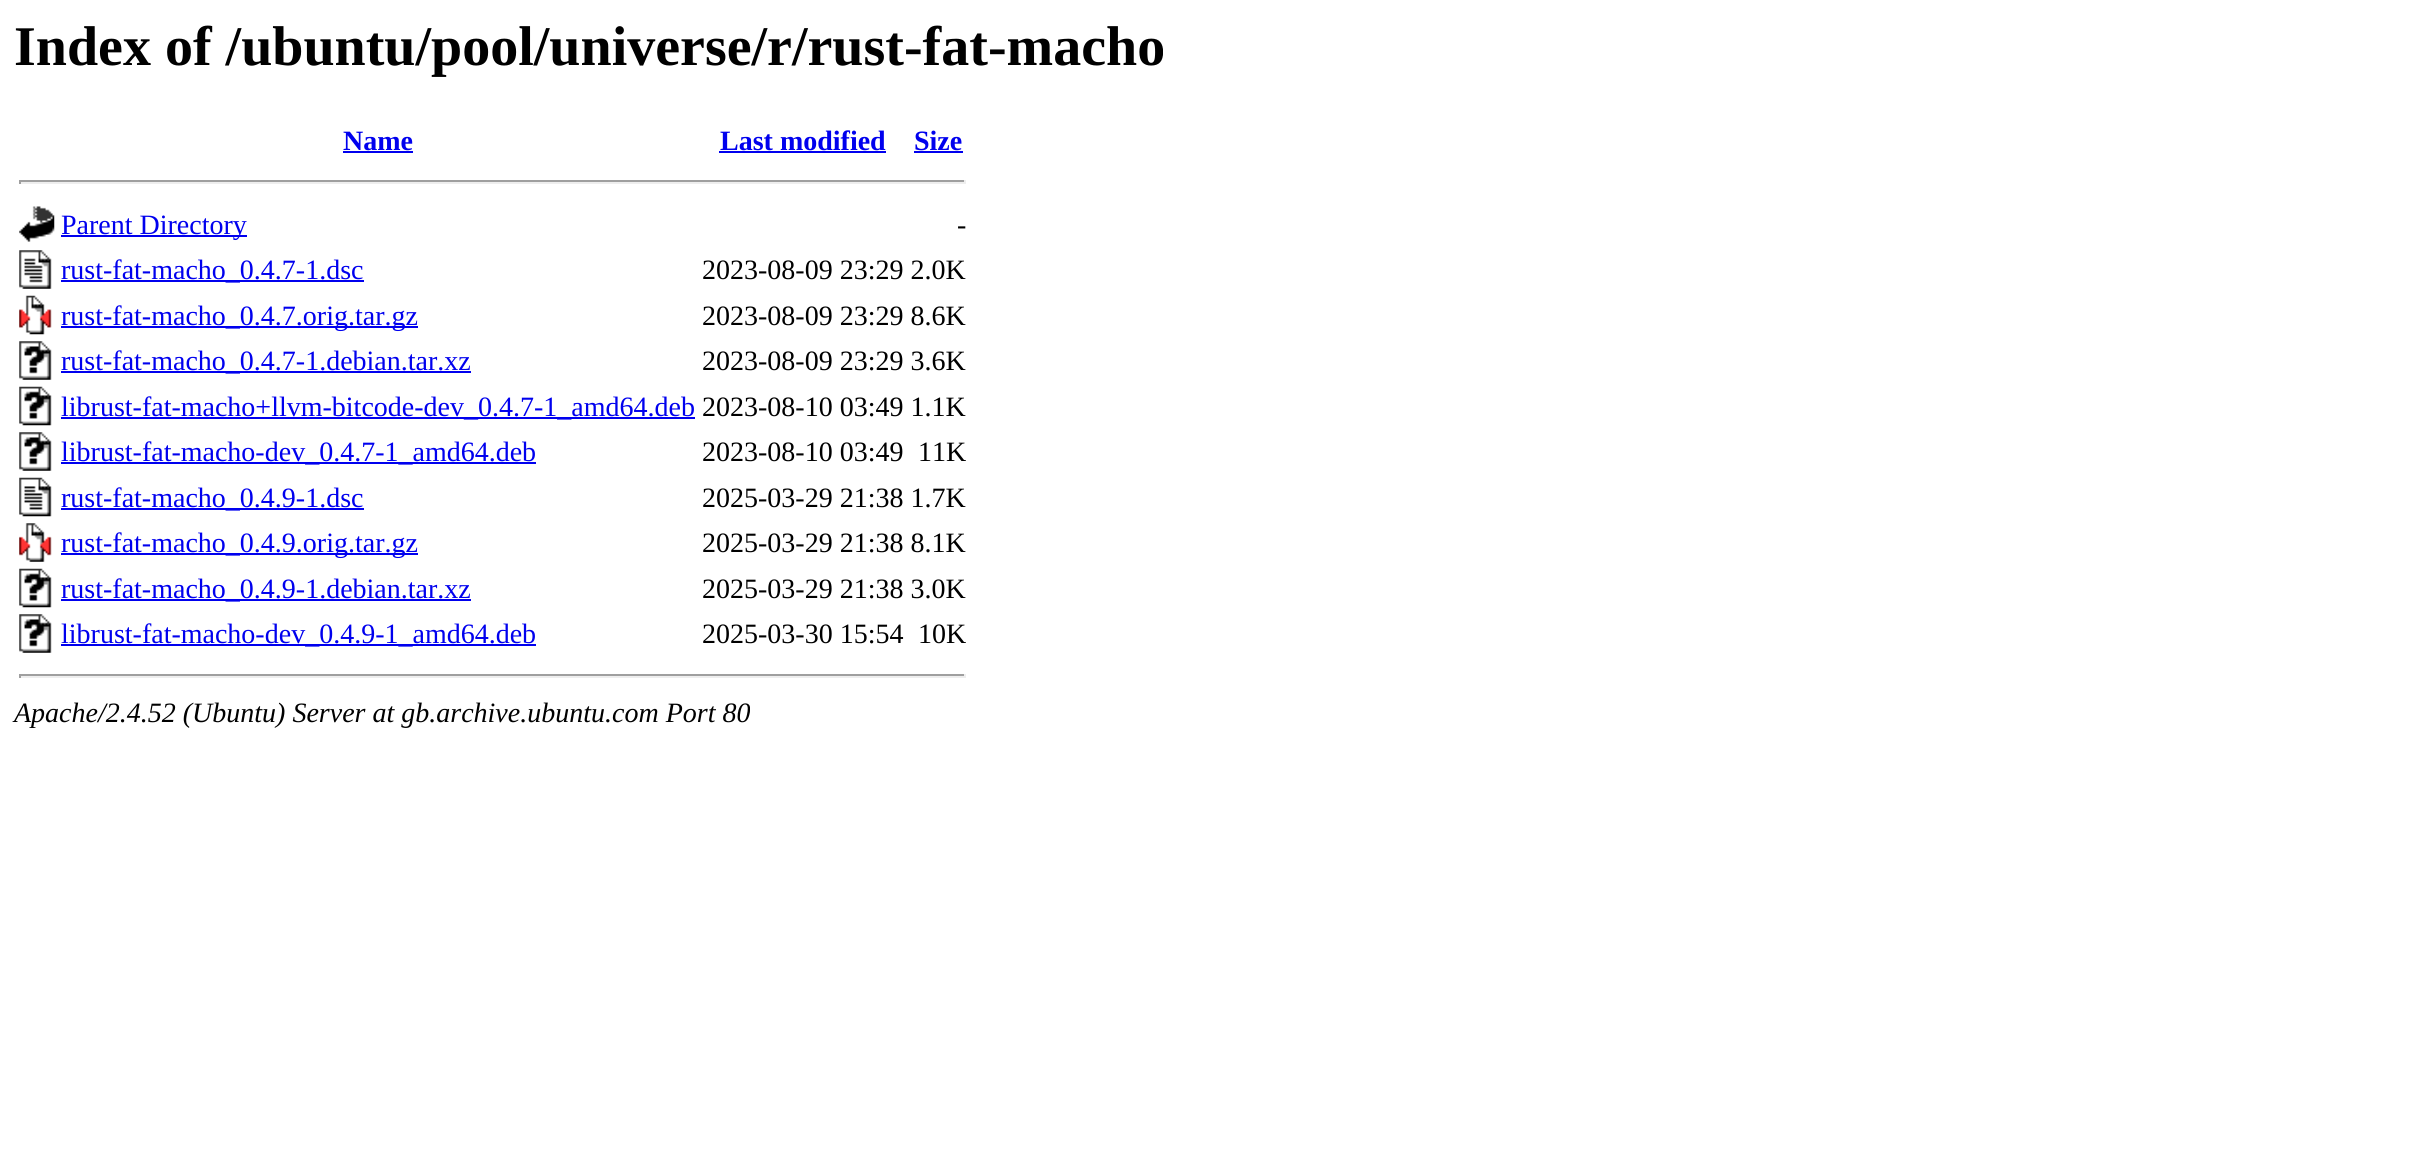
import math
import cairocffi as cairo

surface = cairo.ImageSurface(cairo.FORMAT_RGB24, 2409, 1163)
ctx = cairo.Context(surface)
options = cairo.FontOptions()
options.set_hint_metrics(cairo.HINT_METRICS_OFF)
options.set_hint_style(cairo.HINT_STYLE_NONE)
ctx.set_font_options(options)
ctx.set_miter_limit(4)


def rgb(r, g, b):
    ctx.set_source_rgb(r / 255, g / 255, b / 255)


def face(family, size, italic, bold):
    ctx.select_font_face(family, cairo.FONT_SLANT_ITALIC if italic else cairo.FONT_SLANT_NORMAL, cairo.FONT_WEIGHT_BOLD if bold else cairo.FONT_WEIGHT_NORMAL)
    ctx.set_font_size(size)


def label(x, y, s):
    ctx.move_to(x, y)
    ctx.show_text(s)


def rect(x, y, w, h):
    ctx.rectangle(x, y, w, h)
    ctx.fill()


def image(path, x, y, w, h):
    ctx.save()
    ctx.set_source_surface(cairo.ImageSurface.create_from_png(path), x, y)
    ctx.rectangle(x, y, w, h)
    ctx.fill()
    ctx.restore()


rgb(255, 255, 255)
ctx.paint()
face('Liberation Serif', 56, 0, 1)
rgb(0, 0, 0)
label(14, 65, 'Index of /ubuntu/pool/universe/r/rust-fat-macho')
face('Liberation Serif', 28, 0, 1)
rgb(0, 0, 238)
label(343, 150, 'Name')
rect(343, 151, 70, 2)
label(720, 150, 'Last modified')
rect(719, 151, 167, 2)
label(914, 150, 'Size')
rect(914, 151, 49, 2)
rgb(159, 159, 159)
rect(19, 180, 947, 2)
rgb(238, 238, 238)
rect(964, 180, 2, 4)
rect(19, 182, 947, 2)
rgb(159, 159, 159)
rect(19, 180, 2, 4)
image('image0.png', 19, 206, 36, 36)
rgb(0, 0, 238)
rect(61, 235, 186, 2)
face('Liberation Serif', 28, 0, 0)
label(61, 234, 'Parent Directory')
rgb(0, 0, 0)
label(957, 234, '-')
image('image1.png', 19, 250, 33, 39)
rgb(0, 0, 238)
rect(61, 280, 303, 2)
label(61, 279, 'rust-fat-macho_0.4.7-1.dsc')
rgb(0, 0, 0)
label(702, 279, '2023-08-09 23:29 2.0K')
image('image2.png', 19, 295, 33, 40)
rgb(0, 0, 238)
rect(61, 326, 357, 2)
label(61, 325, 'rust-fat-macho_0.4.7.orig.tar.gz')
rgb(0, 0, 0)
label(702, 325, '2023-08-09 23:29 8.6K')
image('image3.png', 19, 341, 33, 39)
rgb(0, 0, 238)
rect(61, 371, 410, 2)
label(61, 370, 'rust-fat-macho_0.4.7-1.debian.tar.xz')
rgb(0, 0, 0)
label(702, 370, '2023-08-09 23:29 3.6K')
image('image4.png', 19, 386, 33, 40)
rgb(0, 0, 238)
rect(61, 417, 634, 2)
label(61, 416, 'librust-fat-macho+llvm-bitcode-dev_0.4.7-1_amd64.deb')
rgb(0, 0, 0)
label(702, 416, '2023-08-10 03:49 1.1K')
image('image3.png', 19, 432, 33, 39)
rgb(0, 0, 238)
rect(61, 462, 475, 2)
label(61, 461, 'librust-fat-macho-dev_0.4.7-1_amd64.deb')
rgb(0, 0, 0)
label(702, 461, '2023-08-10 03:49')
label(918, 461, '11K')
image('image5.png', 19, 477, 33, 40)
rgb(0, 0, 238)
rect(61, 508, 303, 2)
label(61, 507, 'rust-fat-macho_0.4.9-1.dsc')
rgb(0, 0, 0)
label(702, 507, '2025-03-29 21:38 1.7K')
image('image6.png', 19, 523, 33, 39)
rgb(0, 0, 238)
rect(61, 553, 357, 2)
label(61, 552, 'rust-fat-macho_0.4.9.orig.tar.gz')
rgb(0, 0, 0)
label(702, 552, '2025-03-29 21:38 8.1K')
image('image4.png', 19, 568, 33, 40)
rgb(0, 0, 238)
rect(61, 599, 410, 2)
label(61, 598, 'rust-fat-macho_0.4.9-1.debian.tar.xz')
rgb(0, 0, 0)
label(702, 598, '2025-03-29 21:38 3.0K')
image('image3.png', 19, 614, 33, 39)
rgb(0, 0, 238)
rect(61, 644, 475, 2)
label(61, 643, 'librust-fat-macho-dev_0.4.9-1_amd64.deb')
rgb(0, 0, 0)
label(702, 643, '2025-03-30 15:54')
label(918, 643, '10K')
rgb(159, 159, 159)
rect(19, 674, 947, 2)
rgb(238, 238, 238)
rect(964, 674, 2, 4)
rect(19, 676, 947, 2)
rgb(159, 159, 159)
rect(19, 674, 2, 4)
face('Liberation Serif', 28, 1, 0)
rgb(0, 0, 0)
label(14, 722, 'Apache/2.4.52 (Ubuntu) Server at gb.archive.ubuntu.com Port 80')
surface.write_to_png('render.png')
